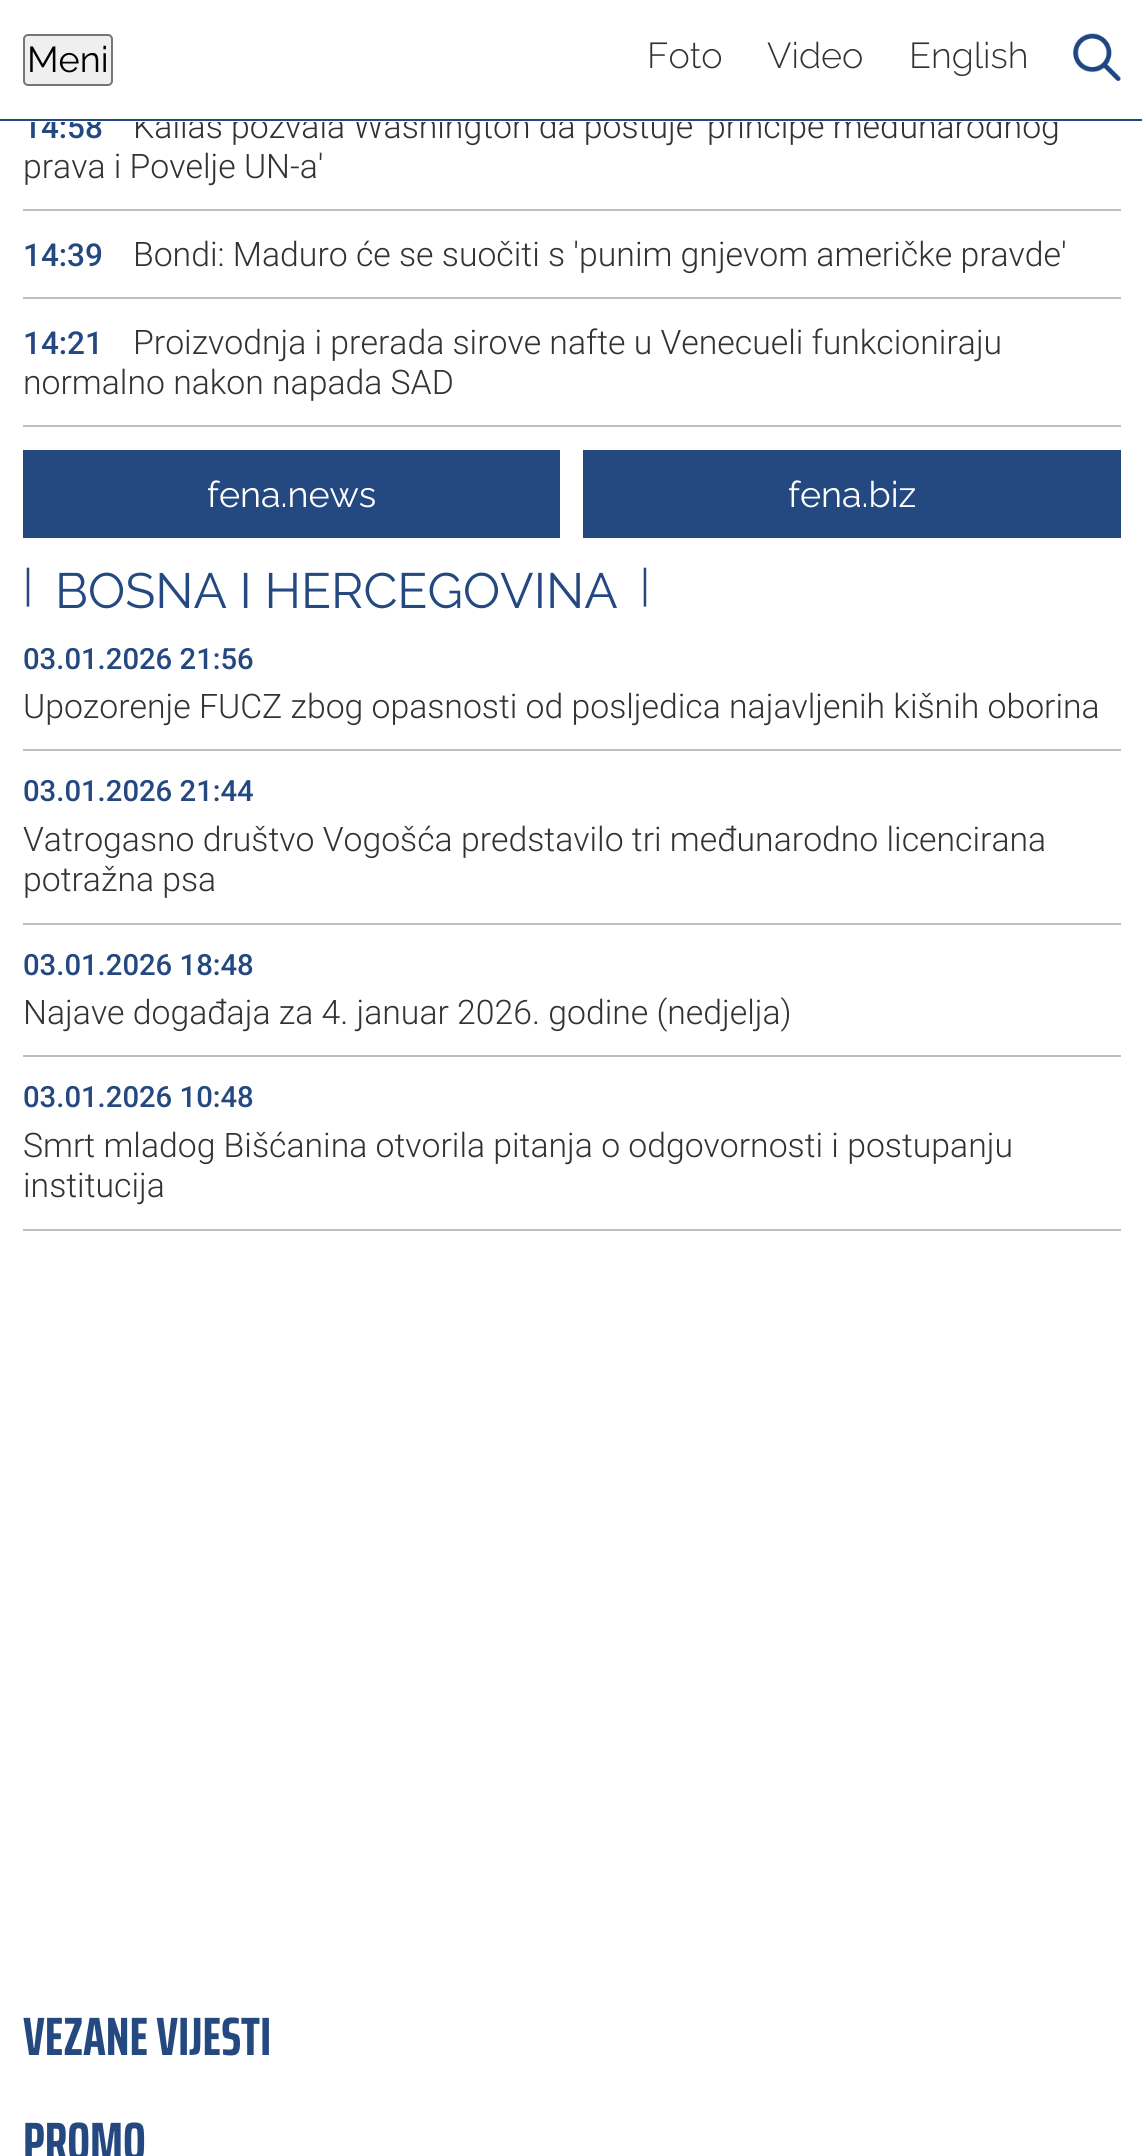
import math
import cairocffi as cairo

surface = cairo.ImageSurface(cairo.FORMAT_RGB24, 1142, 2156)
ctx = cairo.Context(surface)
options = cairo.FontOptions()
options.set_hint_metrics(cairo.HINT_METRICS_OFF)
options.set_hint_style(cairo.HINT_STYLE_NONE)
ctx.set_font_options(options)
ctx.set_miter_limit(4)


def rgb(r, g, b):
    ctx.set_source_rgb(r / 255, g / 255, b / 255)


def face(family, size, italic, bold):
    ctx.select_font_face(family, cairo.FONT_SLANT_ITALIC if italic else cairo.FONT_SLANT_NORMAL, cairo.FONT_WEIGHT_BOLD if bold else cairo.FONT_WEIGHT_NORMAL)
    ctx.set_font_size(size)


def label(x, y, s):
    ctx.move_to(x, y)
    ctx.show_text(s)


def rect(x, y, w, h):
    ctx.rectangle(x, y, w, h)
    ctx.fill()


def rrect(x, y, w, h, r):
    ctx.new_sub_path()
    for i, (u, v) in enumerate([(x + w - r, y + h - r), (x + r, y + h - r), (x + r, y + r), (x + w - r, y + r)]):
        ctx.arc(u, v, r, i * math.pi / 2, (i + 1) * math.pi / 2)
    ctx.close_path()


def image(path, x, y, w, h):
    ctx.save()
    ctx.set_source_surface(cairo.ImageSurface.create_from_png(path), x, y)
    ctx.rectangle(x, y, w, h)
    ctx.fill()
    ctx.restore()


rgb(255, 255, 255)
ctx.paint()
face('Roboto Medium', 31.5, 0, 0)
rgb(36, 72, 128)
label(23, 138, '14:58')
face('Roboto Light', 33.75, 0, 0)
rgb(50, 50, 51)
label(133, 138, 'Kallas pozvala Washington da poštuje \'principe međunarodnog')
rgb(255, 255, 255)
rect(25, 112, 1033, 10)
rgb(36, 72, 128)
rect(0, 119, 1142, 2)
rgb(239, 239, 239)
rrect(24, 35, 88, 50, 4)
ctx.fill_preserve()
rgb(118, 118, 118)
ctx.stroke()
face('Raleway', 36, 0, 0)
rgb(0, 0, 0)
label(27, 72, 'Meni')
face('Raleway Light', 36, 0, 0)
rgb(50, 50, 51)
label(647, 68, 'Foto')
label(767, 68, 'Video')
label(909, 68, 'English')
image('image0.png', 1073, 33, 48, 48)
rgb(190, 190, 190)
rect(23, 209, 1098, 2)
face('Roboto Light', 33.75, 0, 0)
rgb(50, 50, 51)
label(23, 178, 'prava i Povelje UN-a\'')
rgb(190, 190, 190)
rect(23, 297, 1098, 2)
face('Roboto Medium', 31.5, 0, 0)
rgb(36, 72, 128)
label(23, 266, '14:39')
face('Roboto Light', 33.75, 0, 0)
rgb(50, 50, 51)
label(133, 266, 'Bondi: Maduro će se suočiti s \'punim gnjevom američke pravde\'')
rgb(190, 190, 190)
rect(23, 425, 1098, 2)
face('Roboto Medium', 31.5, 0, 0)
rgb(36, 72, 128)
label(23, 354, '14:21')
face('Roboto Light', 33.75, 0, 0)
rgb(50, 50, 51)
label(133, 354, 'Proizvodnja i prerada sirove nafte u Venecueli funkcioniraju')
label(23, 394, 'normalno nakon napada SAD')
rgb(36, 72, 128)
rect(23, 450, 537, 88)
face('Raleway', 36, 0, 0)
rgb(255, 255, 255)
label(207, 507, 'fena.news')
rgb(36, 72, 128)
rect(583, 450, 538, 88)
rgb(255, 255, 255)
label(788, 507, 'fena.biz')
face('Raleway', 43, 0, 0)
rgb(36, 72, 128)
label(23, 601, '|')
face('Raleway', 49.5, 0, 0)
label(55, 608, 'BOSNA I HERCEGOVINA')
face('Raleway', 43, 0, 0)
label(640, 601, '|')
rgb(190, 190, 190)
rect(23, 749, 1098, 2)
face('Roboto Medium', 29.25, 0, 0)
rgb(36, 72, 128)
label(23, 669, '03.01.2026 21:56')
face('Roboto Light', 33.75, 0, 0)
rgb(50, 50, 51)
label(23, 718, 'Upozorenje FUCZ zbog opasnosti od posljedica najavljenih kišnih oborina')
rgb(190, 190, 190)
rect(23, 923, 1098, 2)
face('Roboto Medium', 29.25, 0, 0)
rgb(36, 72, 128)
label(23, 801, '03.01.2026 21:44')
face('Roboto Light', 33.75, 0, 0)
rgb(50, 50, 51)
label(23, 851, 'Vatrogasno društvo Vogošća predstavilo tri međunarodno licencirana')
label(23, 891, 'potražna psa')
rgb(190, 190, 190)
rect(23, 1055, 1098, 2)
face('Roboto Medium', 29.25, 0, 0)
rgb(36, 72, 128)
label(23, 975, '03.01.2026 18:48')
face('Roboto Light', 33.75, 0, 0)
rgb(50, 50, 51)
label(23, 1024, 'Najave događaja za 4. januar 2026. godine (nedjelja)')
rgb(190, 190, 190)
rect(23, 1229, 1098, 2)
face('Roboto Medium', 29.25, 0, 0)
rgb(36, 72, 128)
label(23, 1107, '03.01.2026 10:48')
face('Roboto Light', 33.75, 0, 0)
rgb(50, 50, 51)
label(23, 1157, 'Smrt mladog Bišćanina otvorila pitanja o odgovornosti i postupanju')
label(23, 1197, 'institucija')
face('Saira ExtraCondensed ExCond', 54, 0, 1)
rgb(36, 72, 128)
label(23, 2055, 'VEZANE VIJESTI')
label(23, 2160, 'PROMO')
surface.write_to_png('render.png')
